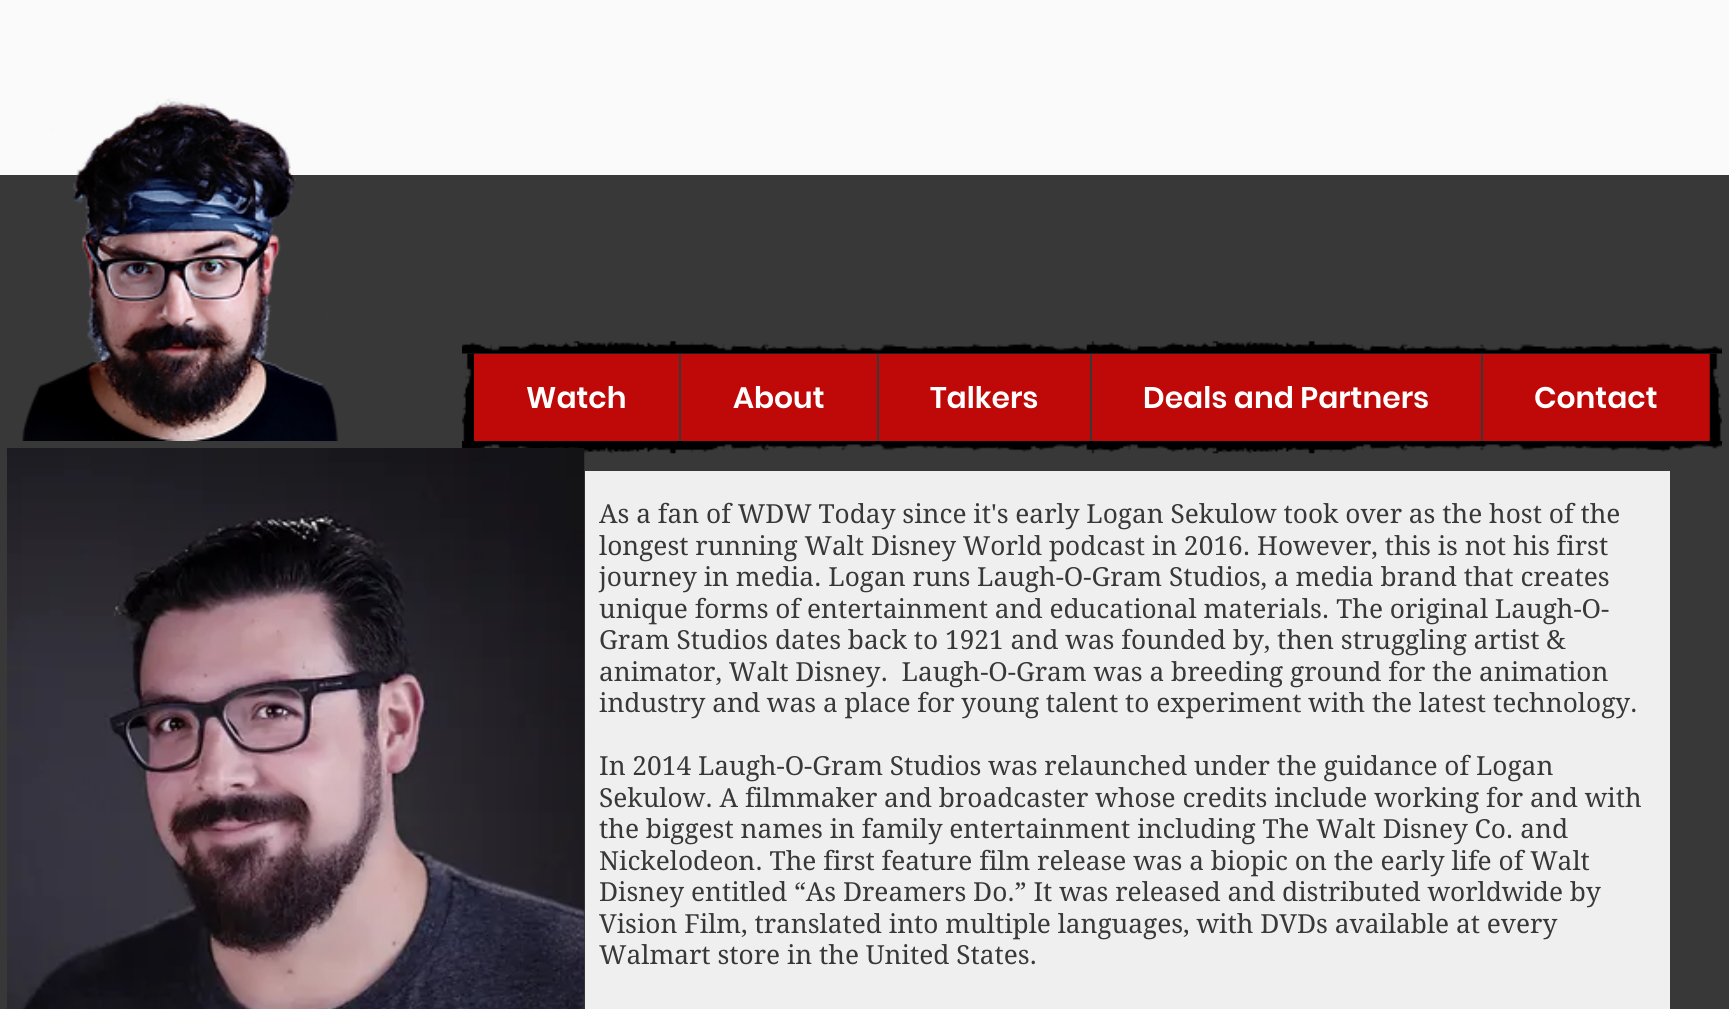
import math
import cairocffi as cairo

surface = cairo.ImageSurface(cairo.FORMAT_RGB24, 1729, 1009)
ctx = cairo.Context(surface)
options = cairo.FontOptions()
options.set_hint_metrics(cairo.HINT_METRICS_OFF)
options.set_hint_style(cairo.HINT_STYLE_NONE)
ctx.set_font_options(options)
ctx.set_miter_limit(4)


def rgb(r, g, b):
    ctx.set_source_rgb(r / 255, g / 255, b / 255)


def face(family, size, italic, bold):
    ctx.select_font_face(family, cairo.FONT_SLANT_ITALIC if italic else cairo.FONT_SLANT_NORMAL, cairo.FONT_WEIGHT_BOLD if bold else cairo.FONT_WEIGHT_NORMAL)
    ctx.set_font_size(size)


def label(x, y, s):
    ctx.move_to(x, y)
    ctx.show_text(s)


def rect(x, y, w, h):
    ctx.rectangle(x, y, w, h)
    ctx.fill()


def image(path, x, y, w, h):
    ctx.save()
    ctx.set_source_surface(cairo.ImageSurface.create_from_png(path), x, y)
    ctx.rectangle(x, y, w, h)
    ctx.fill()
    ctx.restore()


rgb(57, 56, 56)
ctx.paint()
rgb(250, 250, 250)
rect(0, 0, 1729, 175)
image('image0.png', 22, 98, 317, 343)
image('image1.png', 462, 341, 1260, 13)
image('image2.png', 462, 353, 13, 88)
rgb(191, 8, 8)
rect(474, 354, 1236, 87)
face('Poppins SemiBold', 29.75, 0, 0)
rgb(255, 255, 255)
label(526, 408, 'Watch')
rgb(57, 56, 56)
rect(679, 354, 2, 87)
rgb(255, 255, 255)
label(733, 408, 'About')
rgb(57, 56, 56)
rect(877, 354, 2, 87)
rgb(255, 255, 255)
label(930, 408, 'Talkers')
rgb(57, 56, 56)
rect(1090, 354, 2, 87)
rgb(255, 255, 255)
label(1143, 408, 'Deals and Partners')
rgb(57, 56, 56)
rect(1481, 354, 2, 87)
rgb(255, 255, 255)
label(1534, 408, 'Contact')
image('image3.png', 1709, 353, 13, 88)
image('image4.png', 462, 441, 1260, 13)
image('image5.png', 7, 448, 578, 561)
rgb(239, 239, 239)
rect(585, 471, 1085, 538)
face('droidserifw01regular', 26.25, 0, 0)
rgb(57, 56, 56)
label(599, 523, 'As a fan of WDW Today since it\'s early Logan Sekulow took over as the host of the')
label(599, 555, 'longest running Walt Disney World podcast in 2016. However, this is not his first')
label(599, 586, 'journey in media. Logan runs Laugh-O-Gram Studios, a media brand that creates')
label(599, 618, 'unique forms of entertainment and educational materials. The original Laugh-O-')
label(599, 649, 'Gram Studios dates back to 1921 and was founded by, then struggling artist &')
label(599, 681, 'animator, Walt Disney.  Laugh-O-Gram was a breeding ground for the animation')
label(599, 712, 'industry and was a place for young talent to experiment with the latest technology.')
label(599, 775, 'In 2014 Laugh-O-Gram Studios was relaunched under the guidance of Logan')
label(599, 807, 'Sekulow. A filmmaker and broadcaster whose credits include working for and with')
label(599, 838, 'the biggest names in family entertainment including The Walt Disney Co. and')
label(599, 870, 'Nickelodeon. The first feature film release was a biopic on the early life of Walt')
label(599, 901, 'Disney entitled “As Dreamers Do.” It was released and distributed worldwide by')
label(599, 933, 'Vision Film, translated into multiple languages, with DVDs available at every')
label(599, 964, 'Walmart store in the United States.')
surface.write_to_png('render.png')
